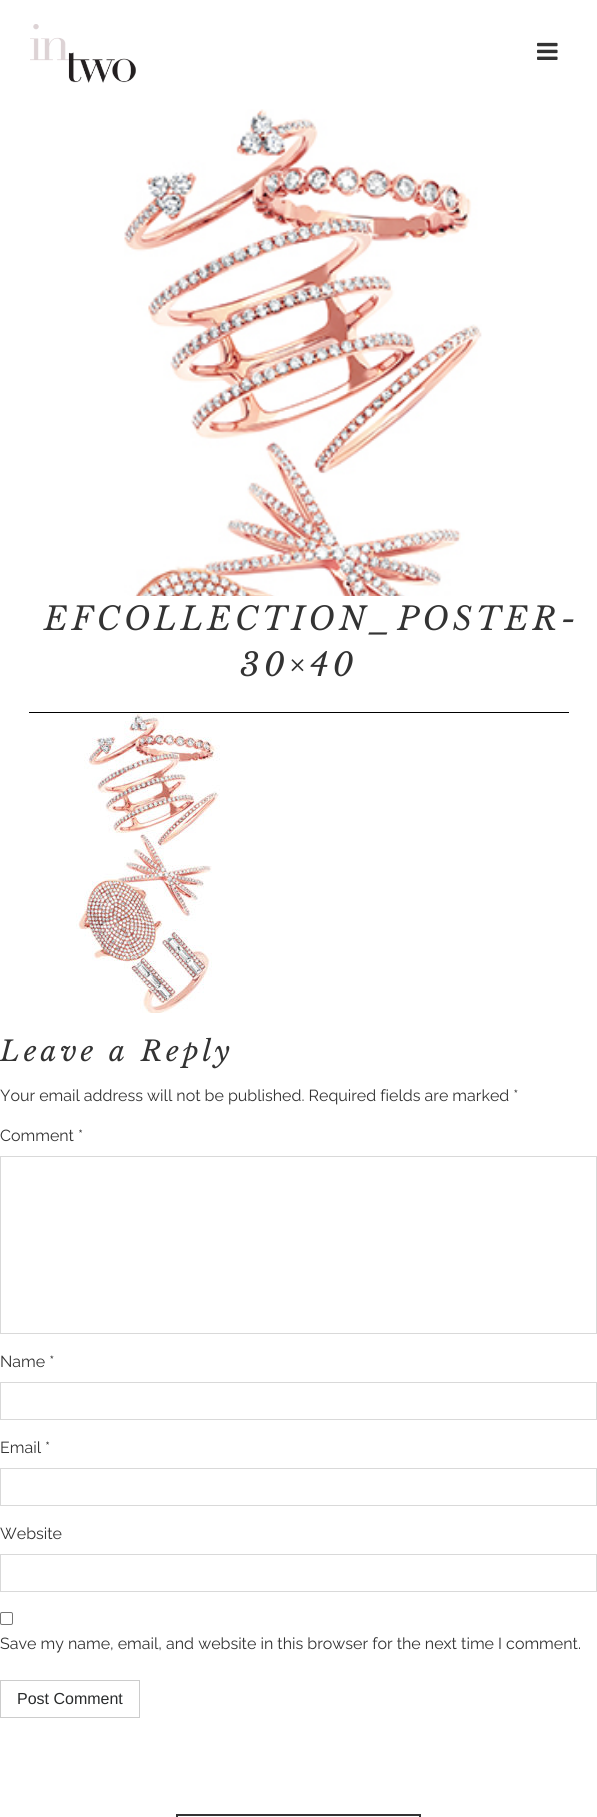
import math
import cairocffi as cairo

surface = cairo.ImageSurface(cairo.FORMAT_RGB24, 597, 1817)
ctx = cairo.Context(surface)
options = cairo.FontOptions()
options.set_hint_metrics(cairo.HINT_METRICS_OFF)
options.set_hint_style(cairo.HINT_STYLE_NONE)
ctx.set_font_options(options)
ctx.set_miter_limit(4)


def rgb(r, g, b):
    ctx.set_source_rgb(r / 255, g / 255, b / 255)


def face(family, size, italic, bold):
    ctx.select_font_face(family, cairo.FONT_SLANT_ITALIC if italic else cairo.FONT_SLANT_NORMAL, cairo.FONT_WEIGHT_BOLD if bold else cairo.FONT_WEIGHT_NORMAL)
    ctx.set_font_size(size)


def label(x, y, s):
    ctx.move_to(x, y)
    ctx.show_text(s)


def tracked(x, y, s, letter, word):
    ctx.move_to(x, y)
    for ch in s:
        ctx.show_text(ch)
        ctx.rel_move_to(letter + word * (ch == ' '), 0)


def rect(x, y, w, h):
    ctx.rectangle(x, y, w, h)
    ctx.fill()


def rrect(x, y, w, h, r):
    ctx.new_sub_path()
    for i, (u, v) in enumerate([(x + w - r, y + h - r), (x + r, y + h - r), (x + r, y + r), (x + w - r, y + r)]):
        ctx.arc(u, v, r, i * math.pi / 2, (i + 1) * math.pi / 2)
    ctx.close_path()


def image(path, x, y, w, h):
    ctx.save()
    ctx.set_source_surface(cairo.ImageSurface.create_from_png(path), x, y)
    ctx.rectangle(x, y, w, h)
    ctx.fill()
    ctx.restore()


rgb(255, 255, 255)
ctx.paint()
image('image0.png', 30, 24, 106, 59)
image('image1.png', 537, 42, 21, 18)
image('image2.png', 124, 109, 358, 487)
rgb(0, 0, 0)
rect(29, 712, 540, 1)
face('Libre Baskerville', 32, 1, 0)
rgb(51, 51, 51)
tracked(44, 630, 'EFCOLLECTION_POSTER-', 4, 0)
tracked(240, 676, '30×40', 4, 0)
image('image3.png', 76, 713, 144, 300)
face('Libre Baskerville', 28, 1, 0)
tracked(0, 1061, 'Leave a Reply', 4, 0)
face('Raleway', 16, 0, 0)
label(0, 1101, 'Your email address will not be published. Required fields are marked *')
label(0, 1141, 'Comment *')
ctx.rectangle(0.5, 1156.5, 596, 177)
rgb(217, 217, 217)
ctx.set_line_width(1)
ctx.stroke()
rgb(51, 51, 51)
label(0, 1367, 'Name *')
ctx.rectangle(0.5, 1382.5, 596, 37)
rgb(217, 217, 217)
ctx.stroke()
rgb(51, 51, 51)
label(0, 1453, 'Email *')
ctx.rectangle(0.5, 1468.5, 596, 37)
rgb(217, 217, 217)
ctx.stroke()
rgb(51, 51, 51)
label(0, 1539, 'Website')
ctx.rectangle(0.5, 1554.5, 596, 37)
rgb(217, 217, 217)
ctx.stroke()
rrect(0.5, 1612.5, 12, 12, 1.5)
rgb(118, 118, 118)
ctx.stroke()
rgb(51, 51, 51)
label(0, 1649, 'Save my name, email, and website in this browser for the next time I comment.')
ctx.rectangle(0.5, 1680.5, 139, 37)
rgb(204, 204, 204)
ctx.stroke()
face('Liberation Sans', 16, 0, 0)
rgb(41, 43, 44)
label(17, 1704, 'Post Comment')
ctx.rectangle(177, 1815, 243, 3)
rgb(51, 51, 51)
ctx.set_line_width(2)
ctx.stroke()
surface.write_to_png('render.png')
